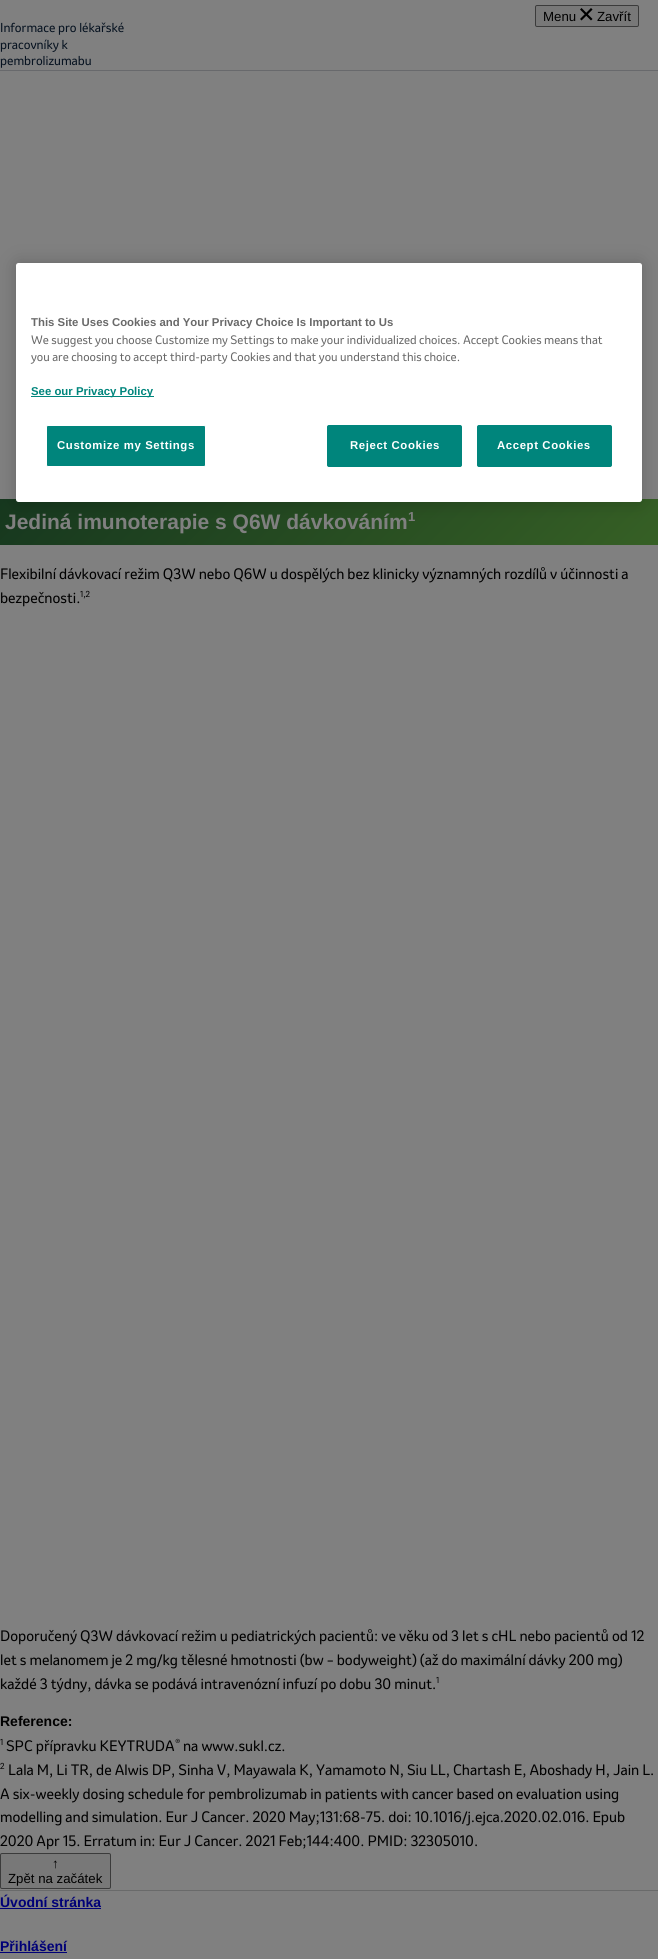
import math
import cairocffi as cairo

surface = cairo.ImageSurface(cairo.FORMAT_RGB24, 658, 1959)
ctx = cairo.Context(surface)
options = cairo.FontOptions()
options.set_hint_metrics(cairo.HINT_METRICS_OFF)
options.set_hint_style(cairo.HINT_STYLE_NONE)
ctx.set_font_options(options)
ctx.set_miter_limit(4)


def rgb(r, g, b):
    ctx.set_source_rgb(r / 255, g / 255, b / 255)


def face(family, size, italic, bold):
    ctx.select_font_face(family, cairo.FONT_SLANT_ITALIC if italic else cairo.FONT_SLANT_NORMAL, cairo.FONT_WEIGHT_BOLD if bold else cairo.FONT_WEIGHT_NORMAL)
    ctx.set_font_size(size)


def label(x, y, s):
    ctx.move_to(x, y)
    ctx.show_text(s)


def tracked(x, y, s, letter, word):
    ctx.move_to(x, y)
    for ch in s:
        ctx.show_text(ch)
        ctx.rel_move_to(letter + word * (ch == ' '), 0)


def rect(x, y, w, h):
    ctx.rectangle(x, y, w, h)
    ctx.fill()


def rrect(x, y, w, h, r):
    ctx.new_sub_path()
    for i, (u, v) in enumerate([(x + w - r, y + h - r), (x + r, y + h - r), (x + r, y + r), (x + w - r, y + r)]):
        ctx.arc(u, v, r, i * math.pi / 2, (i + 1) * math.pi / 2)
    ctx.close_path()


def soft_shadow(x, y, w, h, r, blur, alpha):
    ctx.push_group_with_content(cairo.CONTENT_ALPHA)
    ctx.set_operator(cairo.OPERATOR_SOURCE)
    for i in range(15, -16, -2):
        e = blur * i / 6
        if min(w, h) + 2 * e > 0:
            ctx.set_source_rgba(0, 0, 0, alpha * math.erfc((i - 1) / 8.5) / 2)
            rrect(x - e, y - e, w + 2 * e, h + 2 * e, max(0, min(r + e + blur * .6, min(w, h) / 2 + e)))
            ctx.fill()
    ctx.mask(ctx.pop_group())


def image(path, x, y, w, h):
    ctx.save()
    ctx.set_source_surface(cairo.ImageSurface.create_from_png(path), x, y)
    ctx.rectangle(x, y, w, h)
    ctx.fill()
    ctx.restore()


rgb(128, 128, 128)
ctx.paint()
rgb(104, 105, 108)
rect(0, 70, 658, 1)
rgb(120, 120, 120)
rrect(535.5, 5.5, 103, 21, 1.5)
ctx.fill_preserve()
rgb(59, 59, 59)
ctx.set_line_width(1)
ctx.stroke()
face('Liberation Sans', 13.25, 0, 0)
rgb(0, 0, 0)
label(543, 21, 'Menu')
image('image0.png', 580, 8, 13, 13)
label(597, 21, 'Zavřít')
face('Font', 12, 0, 0)
rgb(6, 18, 32)
label(0, 32, 'Informace pro lékařské')
label(0, 49, 'pracovníky k')
label(0, 65, 'pembrolizumabu')
gradient = cairo.LinearGradient(153, 346, 505, 698)
gradient.add_color_stop_rgba(0, 0.086, 0.216, 0.118, 1)
gradient.add_color_stop_rgba(1, 0.212, 0.376, 0.145, 1)
ctx.set_source(gradient)
rect(0, 499, 658, 46)
rgb(0, 0, 0)
soft_shadow(16, 263, 626, 239, 2.5, 9, 0.2)
rgb(255, 255, 255)
rrect(16, 263, 626, 239, 2.5)
ctx.fill()
face('Liberation Sans', 11.38, 0, 1)
rgb(105, 105, 105)
label(31, 326, 'This Site Uses Cookies and Your Privacy Choice Is Important to Us')
face('Font', 11.38, 0, 0)
label(31, 344, 'We suggest you choose Customize my Settings to make your individualized choices. Accept Cookies means that')
label(31, 361, 'you are choosing to accept third-party Cookies and that you understand this choice.')
rgb(0, 133, 124)
rect(31, 396, 123, 1)
face('Liberation Sans', 11.38, 0, 1)
label(31, 395, 'See our Privacy Policy')
rrect(46.5, 425.5, 159, 41, 1.5)
ctx.fill_preserve()
rgb(255, 255, 255)
ctx.stroke()
tracked(57, 449, 'Customize my Settings', 0.6, 0)
rgb(0, 133, 124)
rrect(327.5, 425.5, 134, 41, 1.5)
ctx.fill_preserve()
ctx.stroke()
rgb(255, 255, 255)
tracked(350, 449, 'Reject Cookies', 0.6, 0)
rgb(0, 133, 124)
rrect(477.5, 425.5, 134, 41, 1.5)
ctx.fill_preserve()
ctx.stroke()
rgb(255, 255, 255)
tracked(497, 449, 'Accept Cookies', 0.6, 0)
face('Liberation Sans', 21, 0, 1)
rgb(128, 128, 128)
label(5, 529, 'Jediná imunoterapie s Q6W dávkováním')
face('Liberation Sans', 13, 0, 1)
label(408, 521, '1')
face('Font', 14, 0, 0)
rgb(0, 0, 0)
label(0, 579, 'Flexibilní dávkovací režim Q3W nebo Q6W u dospělých bez klinicky významných rozdílů v účinnosti a')
label(0, 603, 'bezpečnosti.')
face('Font', 8, 0, 0)
label(80, 597, '1,2')
face('Font', 14, 0, 0)
label(0, 1641, 'Doporučený Q3W dávkovací režim u pediatrických pacientů: ve věku od 3 let s cHL nebo pacientů od 12')
label(0, 1665, 'let s melanomem je 2 mg/kg tělesné hmotnosti (bw – bodyweight) (až do maximální dávky 200 mg)')
label(0, 1689, 'každé 3 týdny, dávka se podává intravenózní infuzí po dobu 30 minut.')
face('Font', 8, 0, 0)
label(436, 1683, '1')
face('Liberation Sans', 14, 0, 1)
label(0, 1726, 'Reference:')
face('Font', 8, 0, 0)
label(0, 1745, '1')
face('Font', 14, 0, 0)
label(6, 1751, 'SPC přípravku KEYTRUDA')
face('Font', 8, 0, 0)
label(175, 1745, '®')
face('Font', 14, 0, 0)
label(183, 1751, 'na www.sukl.cz.')
face('Font', 8, 0, 0)
label(0, 1769, '2')
face('Font', 14, 0, 0)
label(8, 1775, 'Lala M, Li TR, de Alwis DP, Sinha V, Mayawala K, Yamamoto N, Siu LL, Chartash E, Aboshady H, Jain L.')
label(0, 1799, 'A six-weekly dosing schedule for pembrolizumab in patients with cancer based on evaluation using')
label(0, 1822, 'modelling and simulation. Eur J Cancer. 2020 May;131:68-75. doi: 10.1016/j.ejca.2020.02.016. Epub')
label(0, 1846, '2020 Apr 15. Erratum in: Eur J Cancer. 2021 Feb;144:400. PMID: 32305010.')
rgb(120, 120, 120)
rrect(0.5, 1853.5, 110, 35, 1.5)
ctx.fill_preserve()
rgb(59, 59, 59)
ctx.stroke()
face('Liberation Sans', 13.25, 0, 0)
rgb(0, 0, 0)
label(52, 1868, '↑')
label(8, 1883, 'Zpět na začátek')
rgb(105, 106, 106)
rect(0, 1890, 658, 1)
face('Liberation Sans', 14, 0, 1)
rgb(0, 0, 119)
label(0, 1907, 'Úvodní stránka')
rect(0, 1908, 101, 1)
label(0, 1951, 'Přihlášení')
rect(0, 1952, 67, 1)
surface.write_to_png('render.png')
